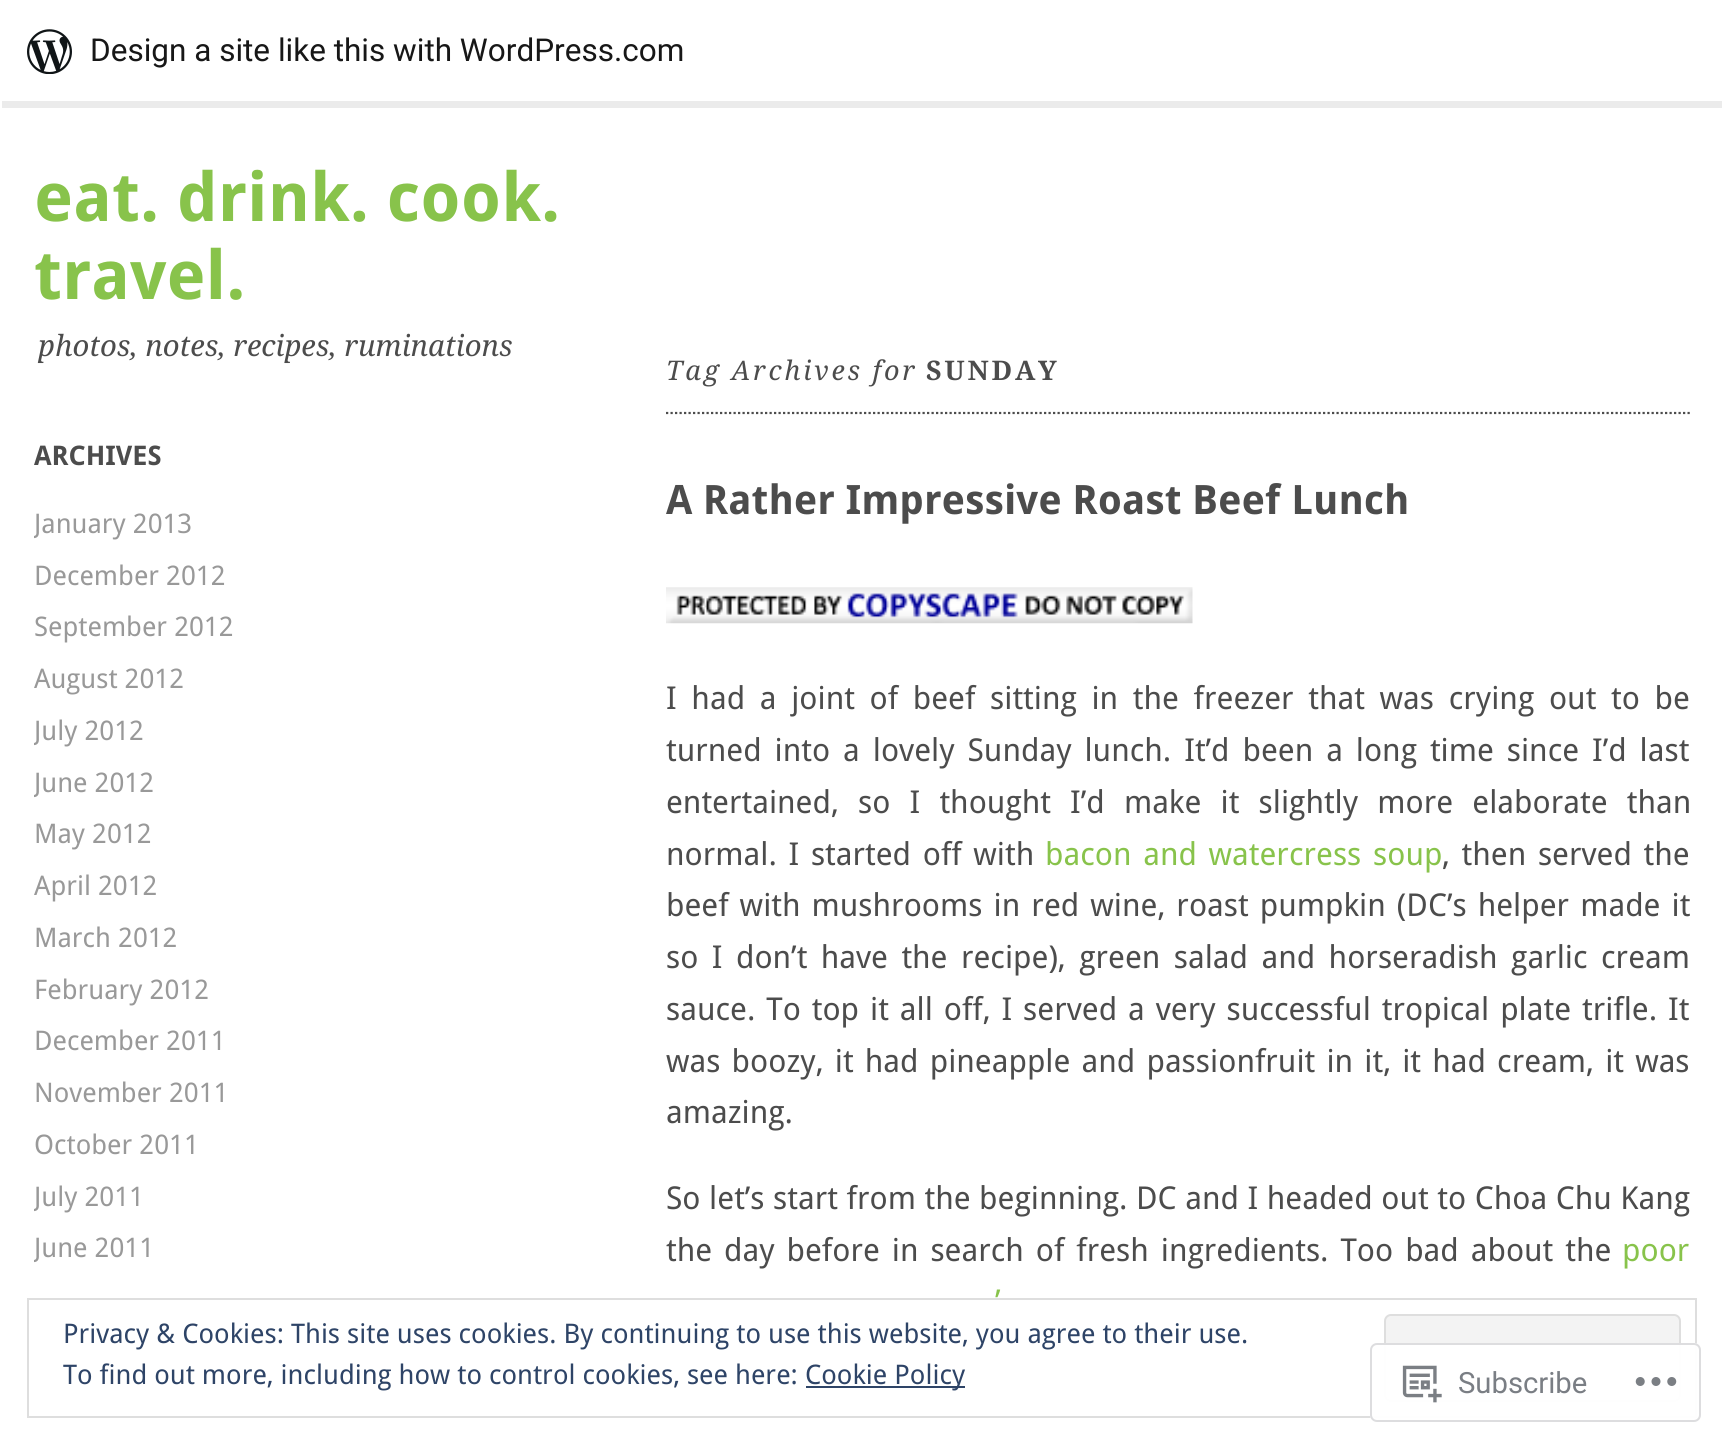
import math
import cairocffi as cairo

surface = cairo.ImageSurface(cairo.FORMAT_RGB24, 1722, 1443)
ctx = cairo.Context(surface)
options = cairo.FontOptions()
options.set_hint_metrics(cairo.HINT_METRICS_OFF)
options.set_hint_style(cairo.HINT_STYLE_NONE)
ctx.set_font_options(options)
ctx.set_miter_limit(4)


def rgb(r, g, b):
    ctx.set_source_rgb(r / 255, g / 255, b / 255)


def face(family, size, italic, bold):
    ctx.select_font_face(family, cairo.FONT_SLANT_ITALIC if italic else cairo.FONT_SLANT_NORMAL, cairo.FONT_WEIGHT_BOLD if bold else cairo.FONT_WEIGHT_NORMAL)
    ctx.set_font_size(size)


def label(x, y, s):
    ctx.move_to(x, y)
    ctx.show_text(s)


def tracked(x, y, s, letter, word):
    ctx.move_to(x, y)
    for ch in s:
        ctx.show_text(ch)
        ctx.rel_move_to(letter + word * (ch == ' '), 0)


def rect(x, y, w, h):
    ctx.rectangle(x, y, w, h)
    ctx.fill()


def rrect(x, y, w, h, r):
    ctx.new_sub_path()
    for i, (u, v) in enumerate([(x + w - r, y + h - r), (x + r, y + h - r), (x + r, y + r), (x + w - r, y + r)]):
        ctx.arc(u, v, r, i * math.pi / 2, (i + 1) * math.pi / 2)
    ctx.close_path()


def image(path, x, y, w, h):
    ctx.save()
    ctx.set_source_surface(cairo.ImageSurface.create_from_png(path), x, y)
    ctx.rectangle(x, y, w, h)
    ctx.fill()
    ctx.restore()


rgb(255, 255, 255)
ctx.paint()
ctx.set_source_rgba(0, 0, 0, 0.08)
ctx.new_path()
ctx.move_to(2, 101)
ctx.line_to(2, 108)
ctx.line_to(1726, 108)
ctx.line_to(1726, 7)
ctx.line_to(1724, 7)
ctx.line_to(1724, 101)
ctx.close_path()
ctx.fill()
image('image0.png', 27, 29, 45, 45)
face('Roboto', 31.5, 0, 0)
rgb(23, 23, 23)
label(90, 61, 'Design a site like this with WordPress.com')
face('Droid Sans', 67.5, 0, 1)
rgb(136, 195, 75)
label(34, 221, 'eat. drink. cook.')
label(34, 299, 'travel.')
face('Droid Serif', 29.25, 1, 0)
rgb(76, 76, 76)
label(38, 356, 'photos, notes, recipes, ruminations')
face('Droid Sans', 27, 0, 1)
label(34, 465, 'ARCHIVES')
ctx.save()
ctx.rectangle(34, 437, 540, 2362)
ctx.clip()
face('Droid Sans', 27, 0, 0)
rgb(153, 153, 153)
label(34, 533, 'January 2013')
ctx.restore()
face('Droid Sans', 27, 0, 0)
rgb(153, 153, 153)
label(34, 585, 'December 2012')
label(34, 636, 'September 2012')
label(34, 688, 'August 2012')
ctx.save()
ctx.rectangle(34, 437, 540, 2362)
ctx.clip()
label(34, 740, 'July 2012')
label(34, 792, 'June 2012')
ctx.restore()
label(34, 843, 'May 2012')
label(34, 895, 'April 2012')
label(34, 947, 'March 2012')
label(34, 999, 'February 2012')
label(34, 1050, 'December 2011')
label(34, 1102, 'November 2011')
label(34, 1154, 'October 2011')
ctx.save()
ctx.rectangle(34, 437, 540, 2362)
ctx.clip()
label(34, 1206, 'July 2011')
label(34, 1257, 'June 2011')
ctx.restore()
ctx.new_path()
ctx.move_to(666, 413)
ctx.line_to(1690, 413)
rgb(76, 76, 76)
ctx.set_line_width(2.2)
ctx.set_dash([2.25, 2.25])
ctx.stroke()
face('Droid Serif', 27, 1, 0)
tracked(666, 380, 'Tag Archives for', 2.75, 0)
face('Droid Serif', 27, 0, 1)
tracked(926, 380, 'SUNDAY', 2.75, 0)
face('Droid Sans', 40.5, 0, 1)
label(666, 514, 'A Rather Impressive Roast Beef Lunch')
image('image1.png', 666, 587, 527, 37)
face('Droid Sans', 31.5, 0, 0)
tracked(666, 709, 'I had a joint of beef sitting in the freezer that was crying out to be', 0, 6.5)
tracked(666, 761, 'turned into a lovely Sunday lunch. It’d been a long time since I’d last', 0, 4.75)
tracked(666, 813, 'entertained, so I thought I’d make it slightly more elaborate than', 0, 11)
tracked(666, 865, 'normal. I started off with', 0, 3.5)
rgb(136, 195, 75)
tracked(1045, 865, 'bacon and watercress soup', 0, 3.5)
rgb(76, 76, 76)
tracked(1442, 865, ', then served the', 0, 3.5)
tracked(666, 916, 'beef with mushrooms in red wine, roast pumpkin (DC’s helper made it', 0, 2.9)
tracked(666, 968, 'so I don’t have the recipe), green salad and horseradish garlic cream', 0, 5.25)
tracked(666, 1020, 'sauce. To top it all off, I served a very successful tropical plate trifle. It', 0, 2.75)
tracked(666, 1072, 'was boozy, it had pineapple and passionfruit in it, it had cream, it was', 0, 3)
label(666, 1123, 'amazing.')
tracked(666, 1209, 'So let’s start from the beginning. DC and I headed out to Choa Chu Kang', 0, 0.4)
tracked(666, 1261, 'the day before in search of fresh ingredients. Too bad about the', 0, 3.75)
rgb(136, 195, 75)
label(1622, 1261, 'poor')
tracked(995, 1312, '’', 0, 3)
ctx.rectangle(28, 1299, 1668, 118)
rgb(222, 222, 222)
ctx.set_line_width(2)
ctx.set_dash([])
ctx.stroke()
face('Droid Sans', 27, 0, 0)
rgb(46, 68, 103)
label(63, 1343, 'Privacy & Cookies: This site uses cookies. By continuing to use this website, you agree to their use.')
rgb(243, 243, 243)
rrect(1385, 1315, 295, 86, 6)
ctx.fill_preserve()
rgb(222, 222, 222)
ctx.stroke()
rgb(46, 68, 103)
label(63, 1384, 'To find out more, including how to control cookies, see here:')
rect(806, 1386, 159, 2)
label(805, 1384, 'Cookie Policy')
ctx.set_source_rgba(1, 1, 1, 0.98)
rrect(1370, 1343, 331, 79, 7)
ctx.fill()
rrect(1371, 1344, 329, 77, 6)
ctx.set_source_rgba(0.863, 0.863, 0.871, 0.98)
ctx.stroke()
image('image2.png', 1402, 1365, 40, 38)
face('Roboto', 29.25, 0, 0)
rgb(122, 126, 132)
label(1458, 1393, 'Subscribe')
image('image3.png', 1635, 1377, 42, 9)
surface.write_to_png('render.png')
